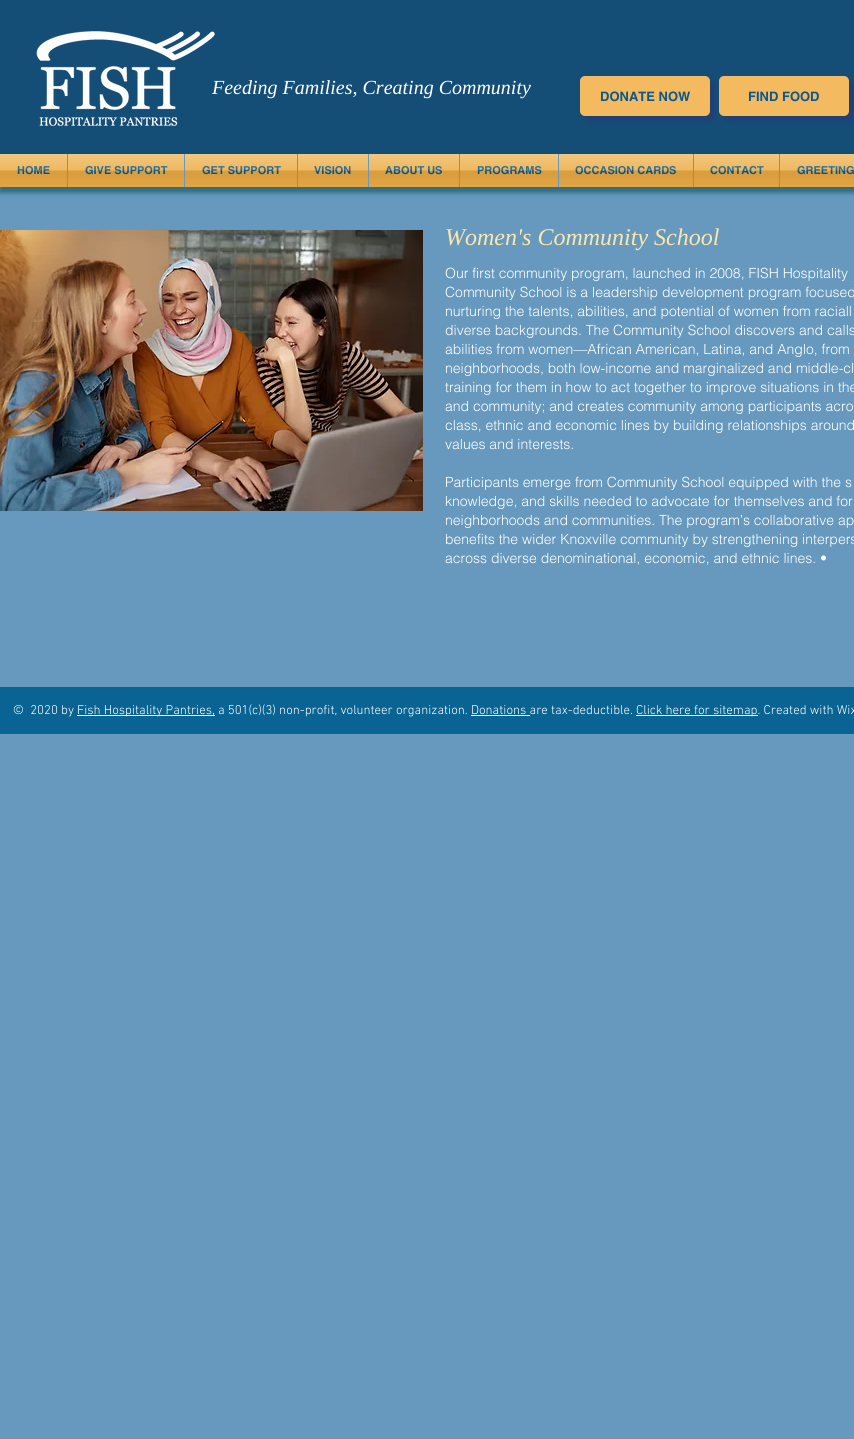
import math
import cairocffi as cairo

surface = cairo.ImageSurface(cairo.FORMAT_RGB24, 854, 1439)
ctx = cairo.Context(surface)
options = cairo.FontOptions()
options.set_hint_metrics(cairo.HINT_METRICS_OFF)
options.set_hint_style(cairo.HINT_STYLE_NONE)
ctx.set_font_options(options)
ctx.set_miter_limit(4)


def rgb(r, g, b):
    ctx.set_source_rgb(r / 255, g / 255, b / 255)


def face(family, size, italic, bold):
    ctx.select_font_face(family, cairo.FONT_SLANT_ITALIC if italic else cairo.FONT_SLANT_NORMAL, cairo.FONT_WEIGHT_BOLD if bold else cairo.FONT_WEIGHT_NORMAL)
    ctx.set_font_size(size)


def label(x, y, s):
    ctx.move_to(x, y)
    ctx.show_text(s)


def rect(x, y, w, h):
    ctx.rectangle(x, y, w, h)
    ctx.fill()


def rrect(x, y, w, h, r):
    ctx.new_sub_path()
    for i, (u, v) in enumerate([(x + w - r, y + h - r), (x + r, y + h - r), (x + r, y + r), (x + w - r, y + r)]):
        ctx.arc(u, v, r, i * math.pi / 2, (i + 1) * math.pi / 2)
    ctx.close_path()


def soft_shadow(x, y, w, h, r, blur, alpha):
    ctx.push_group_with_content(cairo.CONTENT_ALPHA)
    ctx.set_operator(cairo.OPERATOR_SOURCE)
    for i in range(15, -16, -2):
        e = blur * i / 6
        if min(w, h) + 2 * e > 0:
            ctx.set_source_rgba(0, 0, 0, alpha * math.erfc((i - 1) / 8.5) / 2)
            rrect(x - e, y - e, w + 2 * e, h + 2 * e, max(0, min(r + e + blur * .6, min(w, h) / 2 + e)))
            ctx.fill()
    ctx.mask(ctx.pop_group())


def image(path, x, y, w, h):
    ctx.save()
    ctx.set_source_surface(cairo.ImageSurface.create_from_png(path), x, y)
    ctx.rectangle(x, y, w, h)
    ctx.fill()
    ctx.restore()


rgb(102, 153, 189)
ctx.paint()
rgb(20, 77, 117)
rect(0, 0, 854, 154)
face('Liberation Serif', 20, 1, 0)
rgb(255, 255, 255)
label(212, 94, 'Feeding Families, Creating Community')
image('image0.png', 36, 31, 179, 95)
rgb(39, 56, 120)
soft_shadow(585, 81, 130, 40, 5, 2, 0.6)
rgb(243, 186, 95)
rrect(580, 76, 130, 40, 5)
ctx.fill()
face('helvetica', 13, 0, 1)
rgb(10, 88, 143)
label(600, 101, 'DONATE NOW')
rgb(39, 56, 120)
soft_shadow(724, 81, 130, 40, 5, 2, 0.6)
rgb(243, 186, 95)
rrect(719, 76, 130, 40, 5)
ctx.fill()
rgb(10, 88, 143)
label(748, 101, 'FIND FOOD')
rgb(28, 92, 105)
soft_shadow(-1, 160, 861, 33, 0, 2, 0.71)
rgb(198, 156, 77)
rect(0, 154, 854, 33)
image('image1.png', 0, 154, 854, 33)
ctx.set_source_rgba(0.953, 0.69, 0.263, 0.8)
rect(0, 154, 67, 33)
face('helvetica', 11, 0, 1)
rgb(10, 88, 143)
label(17, 174, 'HOME')
image('image2.png', 0, 154, 67, 33)
ctx.set_source_rgba(0.953, 0.69, 0.263, 0.8)
rect(68, 154, 116, 33)
rgb(102, 153, 189)
rect(67, 154, 1, 33)
rgb(10, 88, 143)
label(85, 174, 'GIVE SUPPORT')
image('image3.png', 68, 154, 116, 33)
ctx.set_source_rgba(0.953, 0.69, 0.263, 0.8)
rect(185, 154, 112, 33)
rgb(102, 153, 189)
rect(184, 154, 1, 33)
rgb(10, 88, 143)
label(202, 174, 'GET SUPPORT')
image('image4.png', 185, 154, 112, 33)
ctx.set_source_rgba(0.953, 0.69, 0.263, 0.8)
rect(298, 154, 70, 33)
rgb(102, 153, 189)
rect(297, 154, 1, 33)
rgb(10, 88, 143)
label(314, 174, 'VISION')
image('image5.png', 298, 154, 70, 33)
ctx.set_source_rgba(0.953, 0.69, 0.263, 0.8)
rect(369, 154, 90, 33)
rgb(102, 153, 189)
rect(368, 154, 1, 33)
rgb(10, 88, 143)
label(385, 174, 'ABOUT US')
image('image6.png', 369, 154, 90, 33)
ctx.set_source_rgba(0.953, 0.69, 0.263, 0.8)
rect(460, 154, 98, 33)
rgb(102, 153, 189)
rect(459, 154, 1, 33)
rgb(10, 88, 143)
label(477, 174, 'PROGRAMS')
image('image7.png', 460, 154, 98, 33)
ctx.set_source_rgba(0.953, 0.69, 0.263, 0.8)
rect(559, 154, 134, 33)
rgb(102, 153, 189)
rect(558, 154, 1, 33)
rgb(10, 88, 143)
label(575, 174, 'OCCASION CARDS')
image('image8.png', 559, 154, 134, 33)
ctx.set_source_rgba(0.953, 0.69, 0.263, 0.8)
rect(694, 154, 85, 33)
rgb(102, 153, 189)
rect(693, 154, 1, 33)
rgb(10, 88, 143)
label(710, 174, 'CONTACT')
image('image9.png', 694, 154, 85, 33)
ctx.set_source_rgba(0.953, 0.69, 0.263, 0.8)
rect(780, 154, 74, 33)
rgb(102, 153, 189)
rect(779, 154, 1, 33)
rgb(10, 88, 143)
label(797, 174, 'GREETING')
image('image10.png', 780, 154, 74, 33)
image('image11.png', 0, 230, 423, 281)
face('Liberation Serif', 24, 1, 0)
rgb(254, 230, 170)
label(445, 245, 'Women\'s Community School')
face('helvetica Light', 14, 0, 0)
rgb(255, 255, 255)
label(445, 278, 'Our first community program, launched in 2008, FISH Hospitality')
label(445, 297, 'Community School is a leadership development program focused')
label(445, 316, 'nurturing the talents, abilities, and potential of women from raciall')
label(445, 335, 'diverse backgrounds. The Community School discovers and calls')
label(445, 354, 'abilities from women—African American, Latina, and Anglo, from')
label(445, 373, 'neighborhoods, both low-income and marginalized and middle-cl')
label(445, 392, 'training for them in how to act together to improve situations in the')
label(445, 411, 'and community; and creates community among participants acro')
label(445, 430, 'class, ethnic and economic lines by building relationships around')
label(445, 449, 'values and interests.')
label(445, 487, 'Participants emerge from Community School equipped with the s')
label(445, 506, 'knowledge, and skills needed to advocate for themselves and for')
label(445, 525, 'neighborhoods and communities. The program’s collaborative ap')
label(445, 544, 'benefits the wider Knoxville community by strengthening interpers')
label(445, 563, 'across diverse denominational, economic, and ethnic lines. •')
rgb(9, 100, 147)
rect(0, 687, 854, 47)
face('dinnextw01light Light', 13, 0, 0)
rgb(255, 255, 255)
label(13, 714, '©  2020 by')
rect(77, 715, 138, 1)
label(77, 714, 'Fish Hospitality Pantries, a 501(c)(3) non-profit, volunteer organization. Donations are tax-deductible.')
rect(471, 715, 59, 1)
rect(636, 715, 122, 1)
label(636, 714, 'Click here for sitemap. Created with Wix')
surface.write_to_png('render.png')
